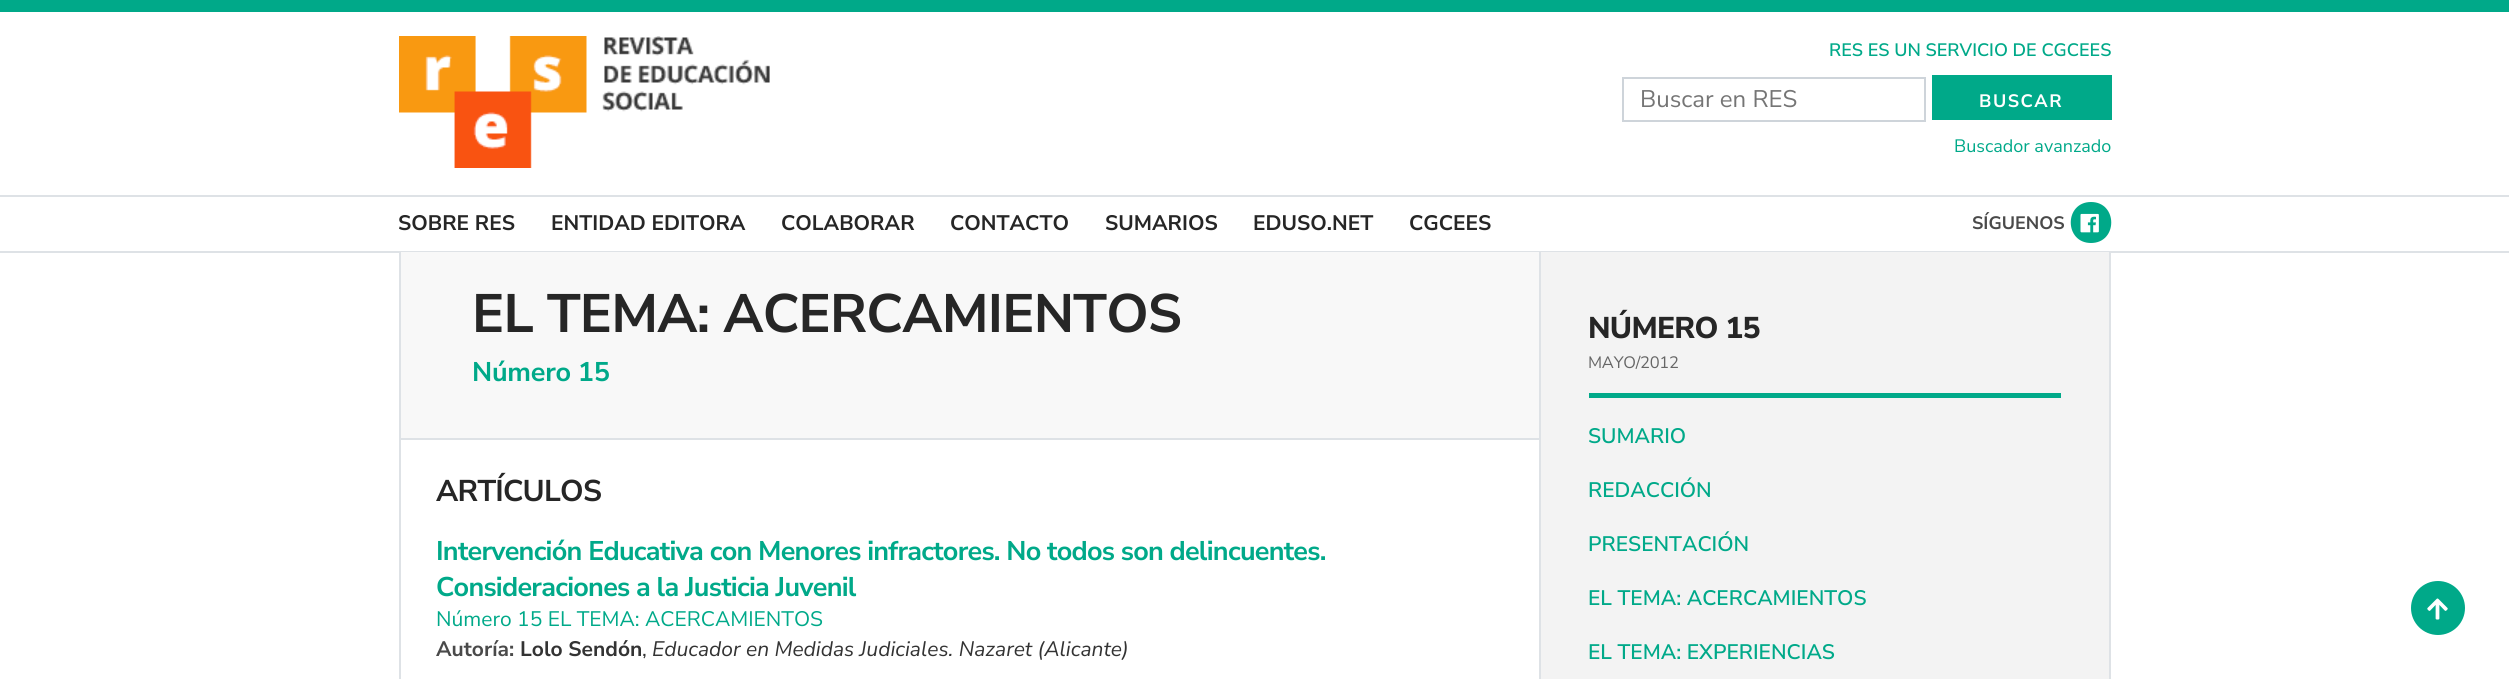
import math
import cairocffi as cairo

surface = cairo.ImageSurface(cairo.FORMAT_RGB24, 2509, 679)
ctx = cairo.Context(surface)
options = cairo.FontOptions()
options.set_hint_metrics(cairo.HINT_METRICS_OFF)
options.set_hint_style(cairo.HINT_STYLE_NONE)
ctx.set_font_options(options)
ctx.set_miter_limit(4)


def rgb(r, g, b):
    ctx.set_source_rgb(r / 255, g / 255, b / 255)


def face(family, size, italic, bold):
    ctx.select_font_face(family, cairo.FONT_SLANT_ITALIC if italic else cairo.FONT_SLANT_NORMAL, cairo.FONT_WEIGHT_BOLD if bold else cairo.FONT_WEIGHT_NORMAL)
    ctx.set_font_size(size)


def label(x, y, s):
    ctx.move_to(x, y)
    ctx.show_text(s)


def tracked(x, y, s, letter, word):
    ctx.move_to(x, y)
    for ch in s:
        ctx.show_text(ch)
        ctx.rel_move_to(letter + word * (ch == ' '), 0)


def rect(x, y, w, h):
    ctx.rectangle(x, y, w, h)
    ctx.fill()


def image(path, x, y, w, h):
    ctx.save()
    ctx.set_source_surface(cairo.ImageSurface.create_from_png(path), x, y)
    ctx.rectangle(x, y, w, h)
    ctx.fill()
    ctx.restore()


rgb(255, 255, 255)
ctx.paint()
rgb(0, 169, 137)
rect(0, 0, 2509, 12)
image('image0.png', 399, 36, 371, 132)
face('Nunito Sans SemiBold', 18, 0, 0)
label(1829, 56, 'RES ES UN SERVICIO DE CGCEES')
ctx.rectangle(1623, 78, 302, 43)
rgb(206, 212, 218)
ctx.stroke()
face('Nunito Sans', 24, 0, 0)
rgb(117, 117, 117)
label(1640, 107, 'Buscar en RES')
rgb(0, 169, 137)
rect(1932, 75, 180, 45)
face('Nunito Sans', 18, 0, 1)
rgb(255, 255, 255)
tracked(1979, 107, 'BUSCAR', 1.5, 0)
face('Nunito Sans', 18, 0, 0)
rgb(0, 169, 137)
label(1954, 152, 'Buscador avanzado')
rgb(222, 226, 230)
rect(0, 195, 2509, 2)
rect(0, 251, 2509, 2)
face('Nunito Sans', 21, 0, 1)
rgb(38, 38, 38)
label(398, 230, 'SOBRE RES')
label(551, 230, 'ENTIDAD EDITORA')
label(781, 230, 'COLABORAR')
label(950, 230, 'CONTACTO')
label(1105, 230, 'SUMARIOS')
label(1253, 230, 'EDUSO.NET')
label(1409, 230, 'CGCEES')
face('Nunito Sans', 18, 0, 1)
rgb(74, 74, 74)
label(1972, 229, 'SÍGUENOS')
rgb(0, 169, 137)
ctx.new_path()
ctx.move_to(2091, 202)
ctx.curve_to(2064, 202, 2064, 243, 2091, 243)
ctx.curve_to(2118, 243, 2118, 202, 2091, 202)
ctx.close_path()
ctx.fill()
image('image1.png', 2080, 213, 19, 20)
rgb(222, 226, 230)
rect(1539, 252, 2, 427)
rect(399, 252, 2, 427)
rgb(248, 248, 248)
rect(401, 252, 1138, 186)
rgb(222, 226, 230)
rect(401, 438, 1138, 2)
face('Nunito Sans', 54, 0, 1)
rgb(38, 38, 38)
tracked(472, 332, 'EL TEMA: ACERCAMIENTOS', -0.75, 0)
face('Nunito Sans', 27, 0, 1)
rgb(0, 169, 137)
tracked(472, 381, 'Número 15', -0.25, 0)
face('Nunito Sans', 30, 0, 1)
rgb(38, 38, 38)
tracked(436, 501, 'ARTÍCULOS', -0.75, 0)
face('Nunito Sans', 27, 0, 1)
rgb(0, 169, 137)
tracked(436, 560, 'Intervención Educativa con Menores infractores. No todos son delincuentes.', -0.75, 0)
tracked(436, 596, 'Consideraciones a la Justicia Juvenil', -0.75, 0)
face('Nunito Sans', 21, 0, 0)
label(436, 626, 'Número 15 EL TEMA: ACERCAMIENTOS')
face('Nunito Sans', 21, 0, 1)
rgb(74, 74, 74)
label(436, 656, 'Autoría:')
rgb(51, 51, 51)
label(520, 656, 'Lolo Sendón')
face('Nunito Sans', 21, 0, 0)
label(642, 656, ',')
face('Nunito Sans', 21, 1, 0)
label(652, 656, 'Educador en Medidas Judiciales. Nazaret (Alicante)')
rgb(222, 226, 230)
rect(2109, 252, 2, 427)
rgb(243, 243, 243)
rect(1541, 252, 568, 427)
face('Nunito Sans ExtraBold', 30, 0, 0)
rgb(38, 38, 38)
tracked(1588, 338, 'NÚMERO 15', -0.75, 0)
rgb(0, 169, 137)
rect(1589, 393, 472, 5)
face('Nunito Sans', 16.5, 0, 0)
rgb(102, 102, 102)
tracked(1588, 368, 'MAYO/2012', -0.25, 0)
face('Nunito Sans SemiBold', 21, 0, 0)
rgb(0, 169, 137)
label(1588, 443, 'SUMARIO')
label(1588, 497, 'REDACCIÓN')
label(1588, 551, 'PRESENTACIÓN')
label(1588, 605, 'EL TEMA: ACERCAMIENTOS')
label(1588, 659, 'EL TEMA: EXPERIENCIAS')
ctx.new_path()
ctx.arc(2438, 608, 27, 0, 2 * math.pi)
ctx.fill()
image('image2.png', 2427, 598, 21, 22)
surface.write_to_png('render.png')
